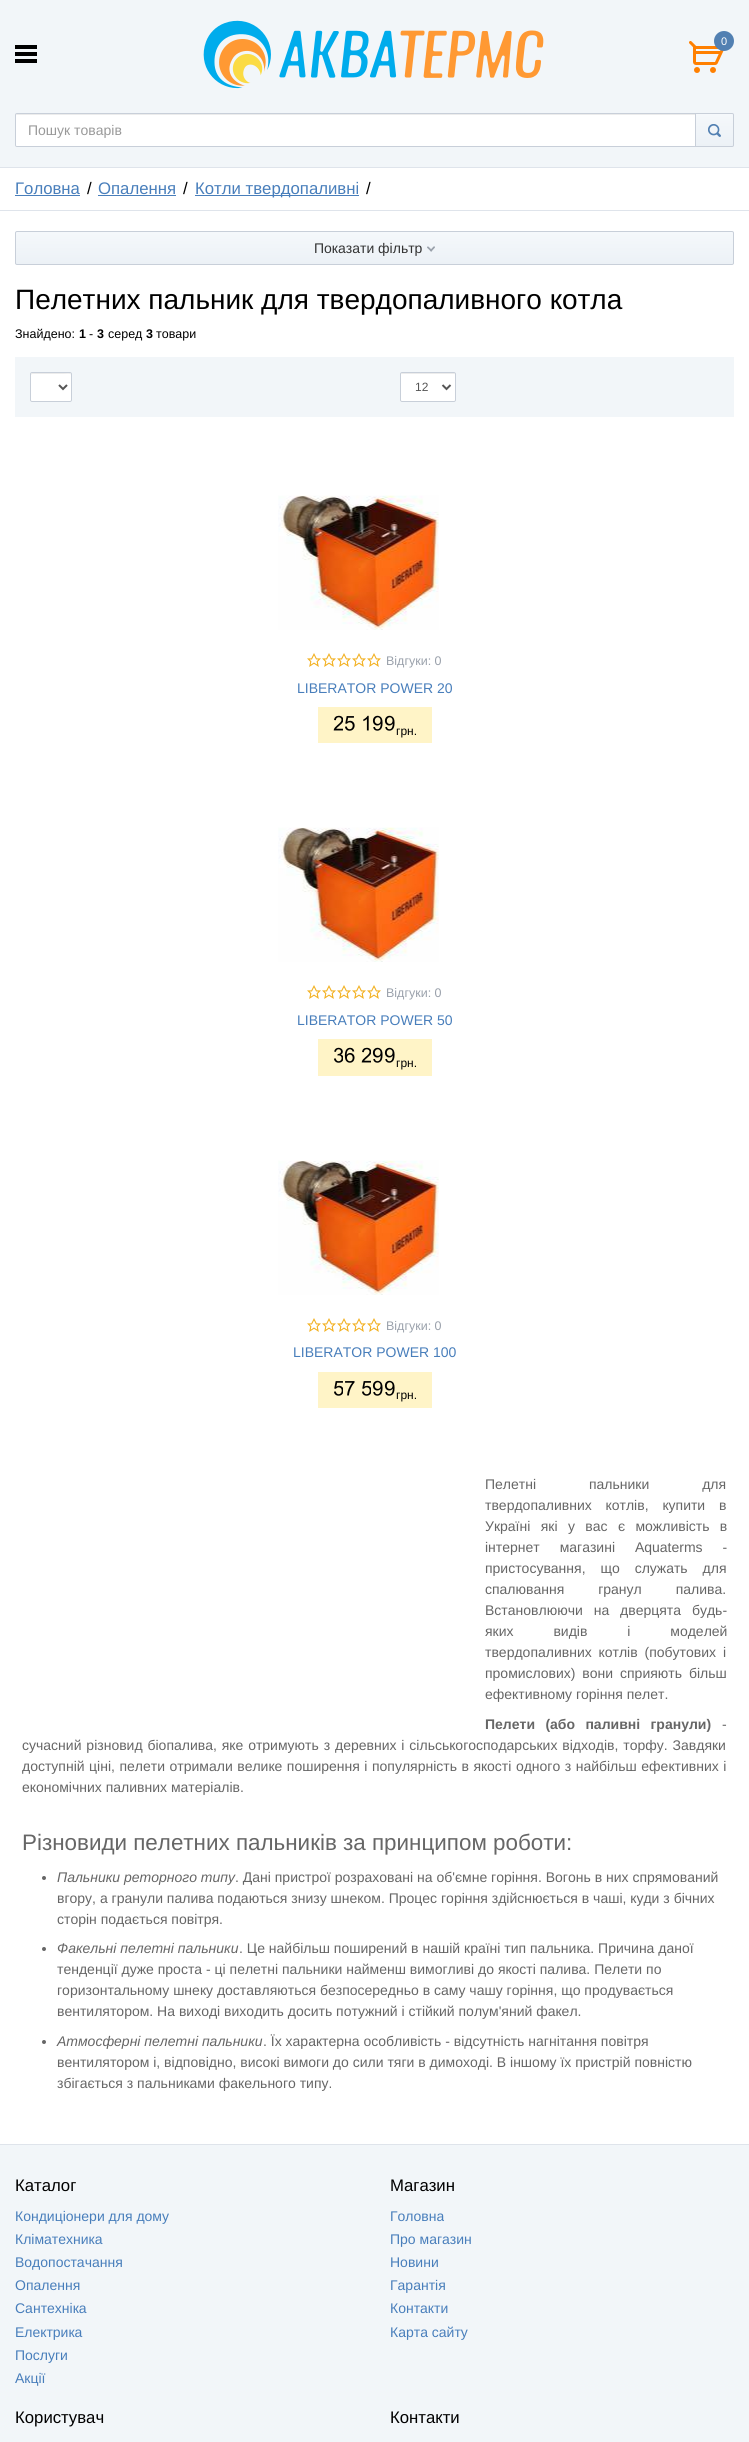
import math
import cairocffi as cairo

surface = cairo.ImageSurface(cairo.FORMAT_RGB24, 749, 2442)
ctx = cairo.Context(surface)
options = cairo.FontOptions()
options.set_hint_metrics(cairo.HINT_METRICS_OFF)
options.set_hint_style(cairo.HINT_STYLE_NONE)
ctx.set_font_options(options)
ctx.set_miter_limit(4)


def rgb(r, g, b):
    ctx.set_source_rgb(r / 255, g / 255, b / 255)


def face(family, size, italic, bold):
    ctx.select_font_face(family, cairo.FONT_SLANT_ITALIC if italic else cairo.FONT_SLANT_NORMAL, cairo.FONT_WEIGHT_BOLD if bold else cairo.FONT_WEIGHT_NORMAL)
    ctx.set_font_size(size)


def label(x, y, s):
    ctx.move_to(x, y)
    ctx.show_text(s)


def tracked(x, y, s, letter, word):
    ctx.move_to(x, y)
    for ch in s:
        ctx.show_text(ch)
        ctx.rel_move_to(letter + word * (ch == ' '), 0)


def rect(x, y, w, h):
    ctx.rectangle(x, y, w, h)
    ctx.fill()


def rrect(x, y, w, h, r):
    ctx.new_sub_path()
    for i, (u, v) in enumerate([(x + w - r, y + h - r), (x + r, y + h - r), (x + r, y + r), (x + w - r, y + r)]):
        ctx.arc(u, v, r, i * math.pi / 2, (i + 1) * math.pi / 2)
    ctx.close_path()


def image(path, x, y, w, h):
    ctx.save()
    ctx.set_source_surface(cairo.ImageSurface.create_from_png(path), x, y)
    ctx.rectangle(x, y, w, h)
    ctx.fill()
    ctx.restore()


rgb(255, 255, 255)
ctx.paint()
rgb(242, 246, 249)
rect(0, 0, 749, 167)
rgb(223, 228, 235)
rect(0, 167, 749, 1)
image('image0.png', 203, 20, 341, 69)
image('image1.png', 689, 41, 35, 32)
rgb(82, 128, 178)
ctx.arc(724, 41, 10, 0, 2 * math.pi)
ctx.fill()
face('Liberation Sans', 11, 0, 0)
rgb(255, 255, 255)
label(721, 45, '0')
image('image2.png', 15, 45, 22, 18)
ctx.new_path()
ctx.move_to(17, 113)
ctx.line_to(696, 113)
ctx.line_to(696, 147)
ctx.line_to(17, 147)
ctx.curve_to(16, 147, 15, 146, 15, 145)
ctx.line_to(15, 115)
ctx.curve_to(15, 114, 16, 113, 17, 113)
ctx.close_path()
ctx.fill()
rgb(236, 236, 236)
ctx.new_path()
ctx.move_to(17, 115)
ctx.line_to(695, 115)
ctx.line_to(695, 114)
ctx.line_to(17, 114)
ctx.curve_to(16, 114, 16, 115, 16, 116)
ctx.curve_to(16, 115, 16, 115, 17, 115)
ctx.close_path()
ctx.fill()
ctx.new_path()
ctx.move_to(17, 113.5)
ctx.line_to(695.5, 113.5)
ctx.line_to(695.5, 146.5)
ctx.line_to(17, 146.5)
ctx.curve_to(16, 146.5, 15.5, 146, 15.5, 145)
ctx.line_to(15.5, 115)
ctx.curve_to(15.5, 114, 16, 113.5, 17, 113.5)
ctx.close_path()
rgb(200, 207, 217)
ctx.set_line_width(1)
ctx.stroke()
face('Liberation Sans', 14, 0, 0)
rgb(153, 153, 153)
label(28, 135, 'Пошук товарів')
gradient = cairo.LinearGradient(715, 114, 715, 146)
gradient.add_color_stop_rgba(0, 0.961, 0.973, 0.984, 1)
gradient.add_color_stop_rgba(1, 0.925, 0.945, 0.965, 1)
ctx.set_source(gradient)
rect(696, 114, 38, 32)
ctx.new_path()
ctx.move_to(695.5, 113.5)
ctx.line_to(732, 113.5)
ctx.curve_to(733, 113.5, 733.5, 114, 733.5, 115)
ctx.line_to(733.5, 145)
ctx.curve_to(733.5, 146, 733, 146.5, 732, 146.5)
ctx.line_to(695.5, 146.5)
ctx.close_path()
rgb(200, 207, 217)
ctx.stroke()
image('image3.png', 708, 124, 13, 13)
rgb(223, 228, 235)
rect(0, 210, 749, 1)
face('Liberation Sans', 16.75, 0, 0)
rgb(72, 126, 187)
label(15, 194, 'Головна')
rect(15, 195, 65, 1)
rgb(0, 0, 0)
label(87, 194, '/')
rgb(72, 126, 187)
label(98, 194, 'Опалення')
rect(98, 195, 78, 1)
rgb(0, 0, 0)
label(183, 194, '/')
rgb(72, 126, 187)
rect(195, 195, 164, 1)
label(195, 194, 'Котли твердопаливні')
rgb(0, 0, 0)
label(366, 194, '/')
ctx.save()
rrect(15, 231, 719, 34, 2)
ctx.clip()
gradient = cairo.LinearGradient(375, 232, 375, 264)
gradient.add_color_stop_rgba(0, 0.961, 0.973, 0.984, 1)
gradient.add_color_stop_rgba(1, 0.925, 0.945, 0.965, 1)
ctx.set_source(gradient)
rect(15, 232, 719, 32)
ctx.restore()
rrect(15.5, 231.5, 718, 33, 1.5)
rgb(200, 207, 217)
ctx.stroke()
face('Liberation Sans', 14, 0, 0)
rgb(51, 51, 51)
label(314, 253, 'Показати фільтр')
image('image4.png', 427, 246, 8, 6)
face('Liberation Sans', 28, 0, 0)
rgb(0, 0, 0)
label(15, 309, 'Пелетних пальник для твердопаливного котла')
face('Liberation Sans', 12.5, 0, 0)
label(15, 338, 'Знайдено:')
face('Liberation Sans', 12.5, 0, 1)
label(79, 338, '1')
face('Liberation Sans', 12.5, 0, 0)
label(89, 338, '-')
face('Liberation Sans', 12.5, 0, 1)
label(97, 338, '3')
face('Liberation Sans', 12.5, 0, 0)
label(108, 338, 'серед')
face('Liberation Sans', 12.5, 0, 1)
label(146, 338, '3')
face('Liberation Sans', 12.5, 0, 0)
label(156, 338, 'товари')
rgb(242, 246, 249)
rect(15, 357, 719, 60)
rgb(255, 255, 255)
rrect(30, 372, 42, 30, 2)
ctx.fill()
rgb(236, 236, 236)
ctx.new_path()
ctx.move_to(32, 374)
ctx.line_to(64, 374)
ctx.curve_to(65, 374, 71, 373, 71, 375)
ctx.curve_to(71, 371, 67, 373, 64, 373)
ctx.line_to(38, 373)
ctx.curve_to(35, 373, 31, 371, 31, 375)
ctx.close_path()
ctx.fill()
rrect(30.5, 372.5, 41, 29, 1.5)
rgb(200, 207, 217)
ctx.stroke()
ctx.new_path()
ctx.move_to(59, 385)
ctx.line_to(63, 389)
ctx.line_to(67, 385)
rgb(85, 85, 85)
ctx.set_line_width(2)
ctx.stroke()
rgb(255, 255, 255)
rrect(400, 372, 56, 30, 2)
ctx.fill()
rgb(236, 236, 236)
ctx.new_path()
ctx.move_to(402, 374)
ctx.line_to(455, 374)
ctx.line_to(455, 375)
ctx.curve_to(455, 370, 449, 373, 445, 373)
ctx.line_to(411, 373)
ctx.curve_to(407, 373, 401, 370, 401, 375)
ctx.curve_to(401, 374, 401, 374, 402, 374)
ctx.close_path()
ctx.fill()
rrect(400.5, 372.5, 55, 29, 1.5)
rgb(200, 207, 217)
ctx.set_line_width(1)
ctx.stroke()
ctx.new_path()
ctx.move_to(442.5, 385)
ctx.line_to(446.5, 389)
ctx.line_to(450.5, 385)
rgb(85, 85, 85)
ctx.set_line_width(2)
ctx.stroke()
face('Liberation Sans', 12, 0, 0)
label(415, 391, '12')
image('image5.png', 278, 495, 161, 135)
image('image6.png', 307, 653, 14, 14)
image('image6.png', 322, 653, 14, 14)
image('image6.png', 337, 653, 14, 14)
image('image6.png', 352, 653, 14, 14)
image('image6.png', 367, 653, 14, 14)
face('Liberation Sans', 12.5, 0, 0)
rgb(154, 161, 171)
label(386, 665, 'Відгуки: 0')
face('Liberation Sans', 14, 0, 0)
rgb(72, 126, 187)
label(297, 693, 'LIBERATOR POWER 20')
rgb(255, 244, 199)
rect(318, 707, 114, 36)
image('image7.png', 333, 715, 10, 16)
image('image8.png', 345, 716, 10, 15)
image('image9.png', 363, 715, 6, 16)
image('image10.png', 372, 715, 11, 16)
image('image10.png', 384, 715, 11, 16)
face('Liberation Sans', 12, 0, 0)
rgb(0, 0, 0)
label(396, 735, 'грн.')
image('image5.png', 278, 827, 161, 135)
image('image6.png', 307, 985, 14, 14)
image('image6.png', 322, 985, 14, 14)
image('image6.png', 337, 985, 14, 14)
image('image6.png', 352, 985, 14, 14)
image('image6.png', 367, 985, 14, 14)
face('Liberation Sans', 12.5, 0, 0)
rgb(154, 161, 171)
label(386, 997, 'Відгуки: 0')
face('Liberation Sans', 14, 0, 0)
rgb(72, 126, 187)
label(297, 1025, 'LIBERATOR POWER 50')
rgb(255, 244, 199)
rect(318, 1039, 114, 37)
image('image11.png', 334, 1047, 9, 16)
image('image12.png', 344, 1047, 11, 16)
image('image13.png', 361, 1047, 10, 16)
image('image14.png', 372, 1047, 11, 16)
image('image14.png', 384, 1047, 11, 16)
face('Liberation Sans', 12, 0, 0)
rgb(0, 0, 0)
label(396, 1067, 'грн.')
image('image5.png', 278, 1160, 161, 135)
image('image6.png', 307, 1318, 14, 14)
image('image6.png', 322, 1318, 14, 14)
image('image6.png', 337, 1318, 14, 14)
image('image6.png', 352, 1318, 14, 14)
image('image6.png', 367, 1318, 14, 14)
face('Liberation Sans', 12.5, 0, 0)
rgb(154, 161, 171)
label(386, 1330, 'Відгуки: 0')
face('Liberation Sans', 14, 0, 0)
rgb(72, 126, 187)
label(293, 1357, 'LIBERATOR POWER 100')
rgb(255, 244, 199)
rect(318, 1372, 114, 36)
image('image15.png', 334, 1381, 9, 15)
image('image16.png', 345, 1381, 10, 15)
image('image15.png', 362, 1381, 9, 15)
image('image17.png', 372, 1380, 11, 16)
image('image17.png', 384, 1380, 11, 16)
face('Liberation Sans', 12, 0, 0)
rgb(0, 0, 0)
label(396, 1399, 'грн.')
face('Liberation Sans', 14, 0, 0)
rgb(102, 102, 102)
tracked(485, 1489, 'Пелетні пальники для', 0, 49)
tracked(485, 1510, 'твердопаливних котлів, купити в', 0, 10)
tracked(485, 1531, 'Україні які у вас є можливість в', 0, 6.5)
tracked(485, 1552, 'інтернет магазині Aquaterms -', 0, 16)
tracked(485, 1573, 'пристосування, що служать для', 0, 11)
tracked(485, 1594, 'спалювання гранул палива.', 0, 30)
tracked(485, 1615, 'Встановлюючи на дверцята будь-', 0, 7)
tracked(485, 1636, 'яких видів і моделей', 0, 36)
tracked(485, 1657, 'твердопаливних котлів (побутових і', 0, 3)
tracked(485, 1678, 'промислових) вони сприяють більш', 0, 3)
label(485, 1699, 'ефективному горіння пелет.')
face('Liberation Sans', 14, 0, 1)
tracked(485, 1729, 'Пелети (або паливні гранули)', 0, 6.5)
face('Liberation Sans', 14, 0, 0)
label(722, 1729, '-')
tracked(22, 1750, 'сучасний різновид біопалива, яке отримують з деревних і сільськогосподарських відходів, торфу. Завдяки', 0, 1)
tracked(22, 1771, 'доступній ціні, пелети отримали велике поширення і популярність в якості одного з найбільш ефективних і', 0, 0.6)
label(22, 1792, 'економічних паливних матеріалів.')
face('Liberation Sans', 22.4, 0, 0)
label(22, 1850, 'Різновиди пелетних пальників за принципом роботи:')
ctx.new_path()
ctx.arc(44, 1878, 2, 0, 2 * math.pi)
ctx.fill()
face('Liberation Sans', 14, 1, 0)
label(57, 1882, 'Пальники реторного типу')
face('Liberation Sans', 14, 0, 0)
label(235, 1882, '. Дані пристрої розраховані на об\'ємне горіння. Вогонь в них спрямований')
label(57, 1903, 'вгору, а гранули палива подаються знизу шнеком. Процес горіння здійснюється в чаші, куди з бічних')
label(57, 1924, 'сторін подається повітря.')
ctx.new_path()
ctx.arc(44, 1949, 2, 0, 2 * math.pi)
ctx.fill()
face('Liberation Sans', 14, 1, 0)
label(57, 1953, 'Факельні пелетні пальники')
face('Liberation Sans', 14, 0, 0)
label(239, 1953, '. Це найбільш поширений в нашій країні тип пальника. Причина даної')
label(57, 1974, 'тенденції дуже проста - ці пелетні пальники найменш вимогливі до якості палива. Пелети по')
label(57, 1995, 'горизонтальному шнеку доставляються безпосередньо в саму чашу горіння, що продувається')
label(57, 2016, 'вентилятором. На виході виходить досить потужний і стійкий полум\'яний факел.')
ctx.new_path()
ctx.arc(44, 2042, 2, 0, 2 * math.pi)
ctx.fill()
face('Liberation Sans', 14, 1, 0)
label(57, 2046, 'Атмосферні пелетні пальники')
face('Liberation Sans', 14, 0, 0)
label(263, 2046, '. Їх характерна особливість - відсутність нагнітання повітря')
label(57, 2067, 'вентилятором і, відповідно, високі вимоги до сили тяги в димоході. В іншому їх пристрій повністю')
label(57, 2088, 'збігається з пальниками факельного типу.')
rgb(242, 246, 249)
rect(0, 2145, 749, 297)
rgb(223, 228, 235)
rect(0, 2144, 749, 1)
face('Liberation Sans', 16.75, 0, 0)
rgb(0, 0, 0)
label(15, 2191, 'Каталог')
face('Liberation Sans', 14, 0, 0)
rgb(72, 126, 187)
label(15, 2221, 'Кондиціонери для дому')
label(15, 2244, 'Кліматехника')
label(15, 2267, 'Водопостачання')
label(15, 2290, 'Опалення')
label(15, 2313, 'Сантехніка')
label(15, 2337, 'Електрика')
label(15, 2360, 'Послуги')
label(15, 2383, 'Акції')
face('Liberation Sans', 16.75, 0, 0)
rgb(0, 0, 0)
label(390, 2191, 'Магазин')
face('Liberation Sans', 14, 0, 0)
rgb(72, 126, 187)
label(390, 2221, 'Головна')
label(390, 2244, 'Про магазин')
label(390, 2267, 'Новини')
label(390, 2290, 'Гарантія')
label(390, 2313, 'Контакти')
label(390, 2337, 'Карта сайту')
face('Liberation Sans', 16.75, 0, 0)
rgb(0, 0, 0)
label(15, 2423, 'Користувач')
label(390, 2423, 'Контакти')
surface.write_to_png('render.png')
